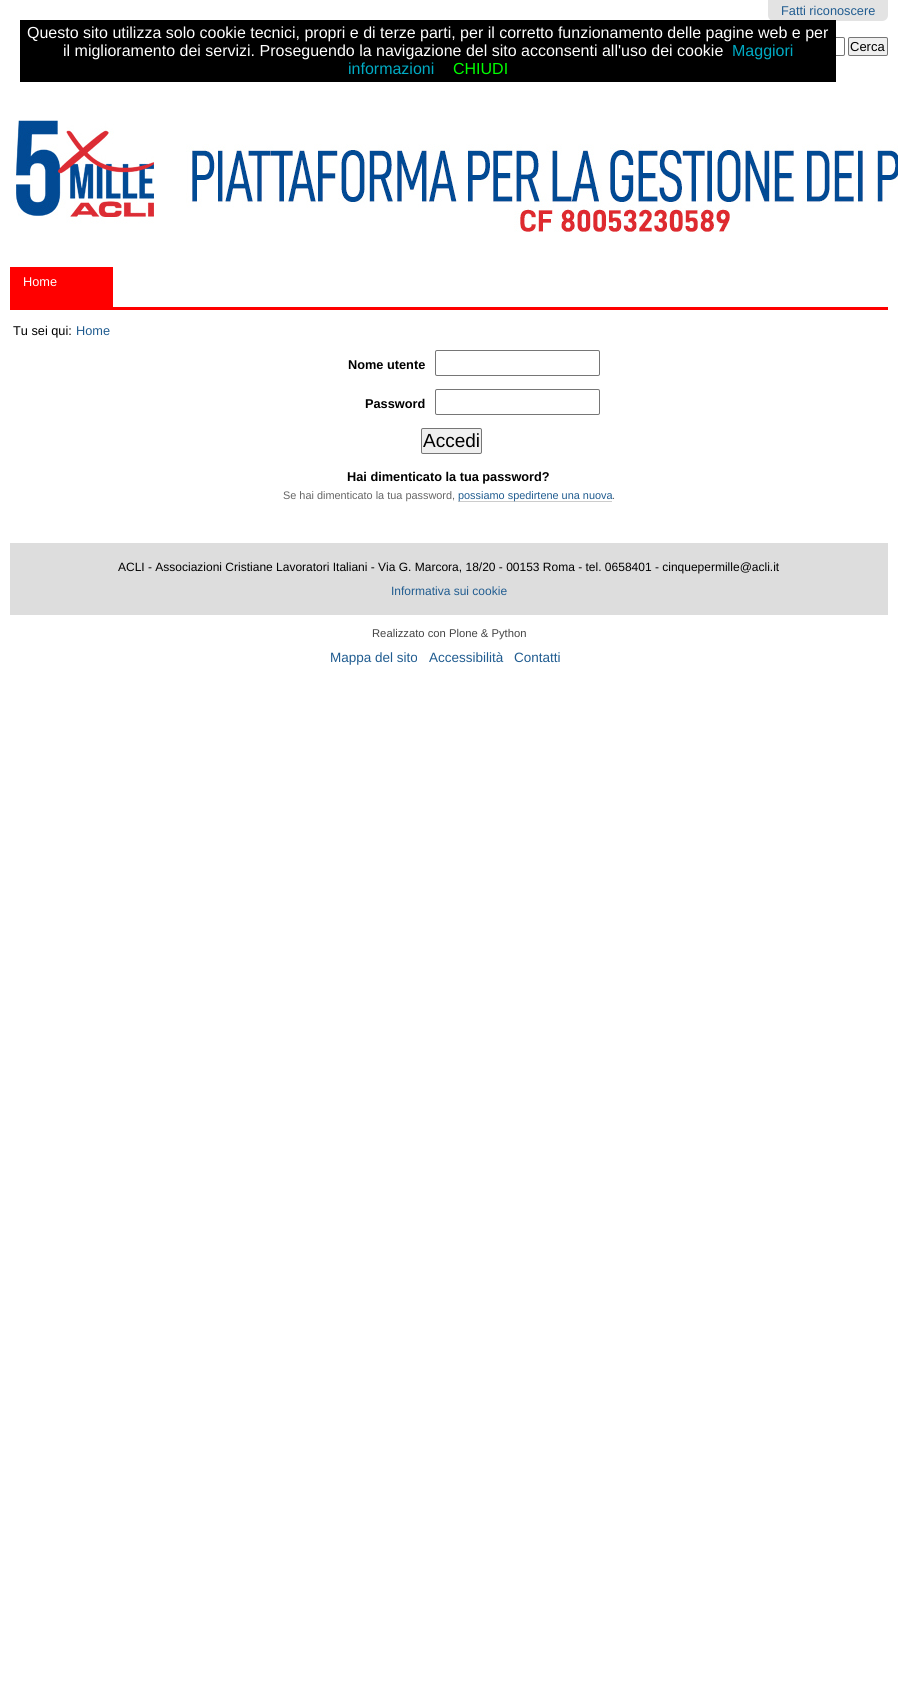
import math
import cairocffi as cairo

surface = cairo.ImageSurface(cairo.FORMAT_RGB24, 898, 1701)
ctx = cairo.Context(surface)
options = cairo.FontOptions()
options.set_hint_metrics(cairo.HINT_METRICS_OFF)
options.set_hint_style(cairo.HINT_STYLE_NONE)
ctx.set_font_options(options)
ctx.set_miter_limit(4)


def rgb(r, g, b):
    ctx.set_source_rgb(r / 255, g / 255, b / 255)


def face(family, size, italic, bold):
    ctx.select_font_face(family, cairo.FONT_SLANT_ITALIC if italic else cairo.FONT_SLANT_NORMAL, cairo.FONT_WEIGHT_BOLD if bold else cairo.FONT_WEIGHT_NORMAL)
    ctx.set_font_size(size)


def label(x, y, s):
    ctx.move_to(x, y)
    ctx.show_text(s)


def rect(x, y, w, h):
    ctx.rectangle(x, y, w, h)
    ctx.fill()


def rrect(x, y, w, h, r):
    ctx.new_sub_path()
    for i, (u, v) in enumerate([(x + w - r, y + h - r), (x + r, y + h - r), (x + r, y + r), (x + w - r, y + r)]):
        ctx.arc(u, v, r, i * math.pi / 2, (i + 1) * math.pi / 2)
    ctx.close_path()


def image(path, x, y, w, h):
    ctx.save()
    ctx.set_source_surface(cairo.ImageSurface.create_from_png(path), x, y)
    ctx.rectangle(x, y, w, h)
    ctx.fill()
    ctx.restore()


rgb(255, 255, 255)
ctx.paint()
rgb(227, 227, 227)
ctx.new_path()
ctx.move_to(768, 0)
ctx.line_to(888, 0)
ctx.line_to(888, 15)
ctx.curve_to(888, 18.5, 885.5, 21, 882, 21)
ctx.line_to(774, 21)
ctx.curve_to(770.5, 21, 768, 18.5, 768, 15)
ctx.close_path()
ctx.fill()
face('Liberation Sans', 12.75, 0, 0)
rgb(32, 92, 144)
label(781, 15, 'Fatti riconoscere')
rrect(667.5, 37.5, 177, 18, 1.5)
rgb(118, 118, 118)
ctx.set_line_width(1)
ctx.stroke()
rgb(239, 239, 239)
rrect(848.5, 37.5, 39, 18, 1.5)
ctx.fill_preserve()
rgb(118, 118, 118)
ctx.stroke()
face('Liberation Sans', 13, 0, 0)
rgb(0, 0, 0)
label(850, 51, 'Cerca')
image('image0.png', 10, 120, 888, 112)
rgb(255, 0, 0)
rect(10, 307, 878, 3)
rect(10, 267, 103, 40)
face('Liberation Sans', 12.75, 0, 0)
rgb(255, 255, 255)
label(23, 286, 'Home')
rgb(0, 0, 0)
label(13, 335, 'Tu sei qui:')
rgb(32, 92, 144)
label(76, 335, 'Home')
face('Liberation Sans', 12.75, 0, 1)
rgb(0, 0, 0)
label(348, 369, 'Nome utente')
rrect(435.5, 350.5, 164, 25, 1.5)
rgb(118, 118, 118)
ctx.stroke()
rgb(0, 0, 0)
label(365, 408, 'Password')
rrect(435.5, 389.5, 164, 25, 1.5)
rgb(118, 118, 118)
ctx.stroke()
rgb(239, 239, 239)
rrect(421.5, 428.5, 60, 25, 1.5)
ctx.fill_preserve()
rgb(118, 118, 118)
ctx.stroke()
face('Liberation Sans', 19, 0, 0)
rgb(0, 0, 0)
label(423, 447, 'Accedi')
face('Liberation Sans', 12.75, 0, 1)
label(347, 481, 'Hai dimenticato la tua password?')
face('Liberation Sans', 10.9, 0, 0)
rgb(102, 102, 102)
label(283, 499, 'Se hai dimenticato la tua password,')
rgb(204, 204, 204)
rect(458, 501, 154, 1)
rgb(32, 92, 144)
label(458, 499, 'possiamo spedirtene una nuova')
rgb(102, 102, 102)
label(612, 499, '.')
rgb(221, 221, 221)
rect(10, 543, 878, 72)
face('Liberation Sans', 12, 0, 0)
rgb(0, 0, 0)
label(118, 571, 'ACLI - Associazioni Cristiane Lavoratori Italiani - Via G. Marcora, 18/20 - 00153 Roma - tel. 0658401 - cinquepermille@acli.it')
rgb(32, 92, 144)
label(391, 595, 'Informativa sui cookie')
face('Liberation Sans', 11.25, 0, 0)
rgb(68, 68, 68)
label(372, 637, 'Realizzato con Plone & Python')
face('Liberation Sans', 13.5, 0, 0)
rgb(32, 92, 144)
label(330, 662, 'Mappa del sito')
label(429, 662, 'Accessibilità')
label(514, 662, 'Contatti')
rgb(0, 0, 0)
rect(20, 20, 816, 62)
face('Liberation Sans', 16, 0, 0)
rgb(255, 255, 255)
label(27, 38, 'Questo sito utilizza solo cookie tecnici, propri e di terze parti, per il corretto funzionamento delle pagine web e per')
label(63, 56, 'il miglioramento dei servizi. Proseguendo la navigazione del sito acconsenti all\'uso dei cookie')
rgb(0, 170, 195)
label(732, 56, 'Maggiori')
label(348, 74, 'informazioni')
rgb(0, 255, 0)
label(453, 74, 'CHIUDI')
surface.write_to_png('render.png')
